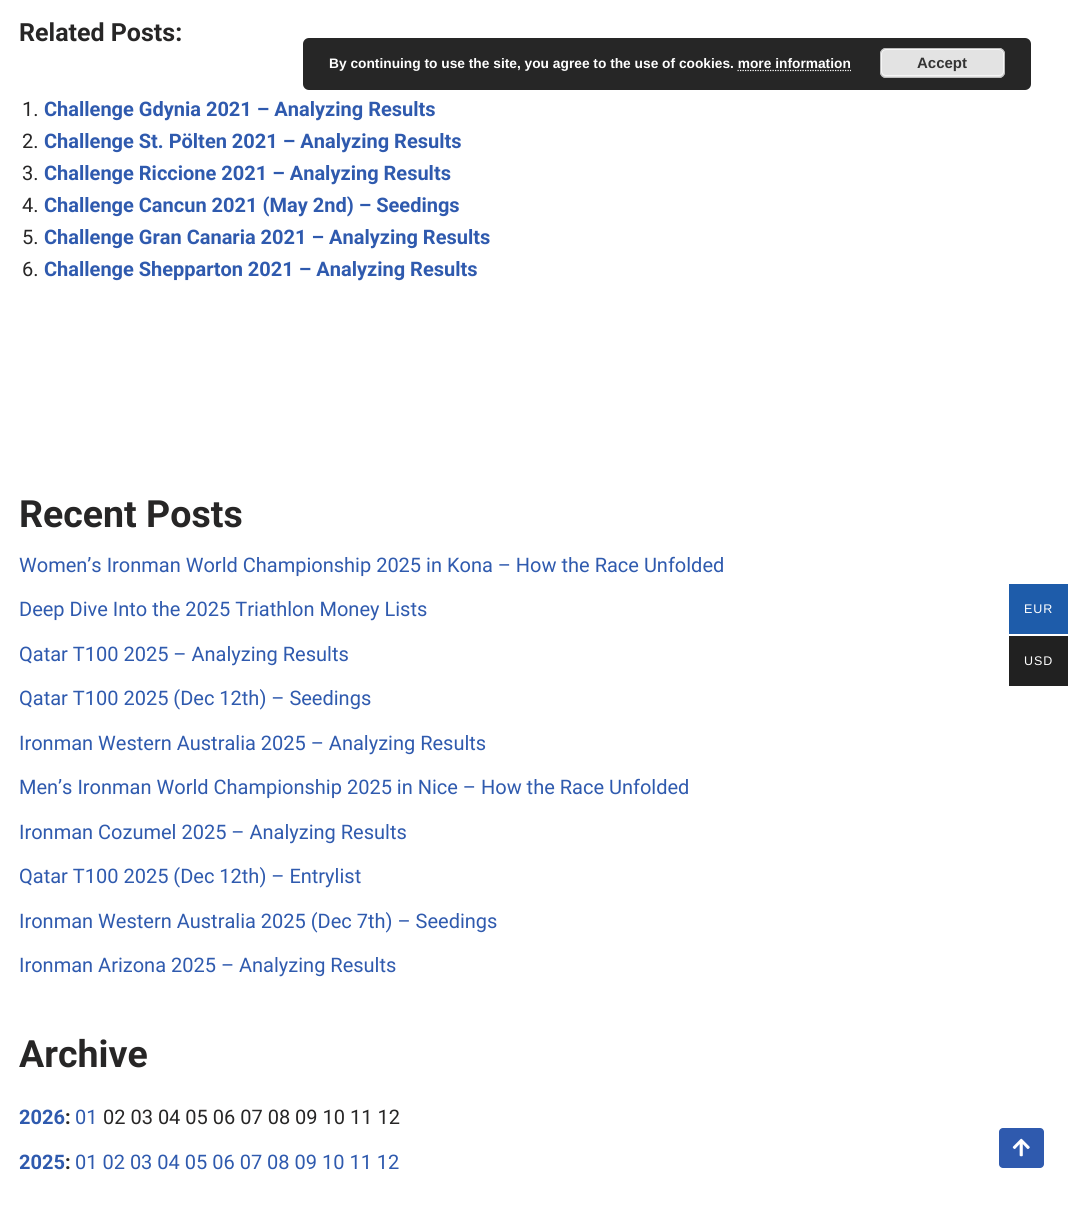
import math
import cairocffi as cairo

surface = cairo.ImageSurface(cairo.FORMAT_RGB24, 1068, 1205)
ctx = cairo.Context(surface)
options = cairo.FontOptions()
options.set_hint_metrics(cairo.HINT_METRICS_OFF)
options.set_hint_style(cairo.HINT_STYLE_NONE)
ctx.set_font_options(options)
ctx.set_miter_limit(4)


def rgb(r, g, b):
    ctx.set_source_rgb(r / 255, g / 255, b / 255)


def face(family, size, italic, bold):
    ctx.select_font_face(family, cairo.FONT_SLANT_ITALIC if italic else cairo.FONT_SLANT_NORMAL, cairo.FONT_WEIGHT_BOLD if bold else cairo.FONT_WEIGHT_NORMAL)
    ctx.set_font_size(size)


def label(x, y, s):
    ctx.move_to(x, y)
    ctx.show_text(s)


def tracked(x, y, s, letter, word):
    ctx.move_to(x, y)
    for ch in s:
        ctx.show_text(ch)
        ctx.rel_move_to(letter + word * (ch == ' '), 0)


def rect(x, y, w, h):
    ctx.rectangle(x, y, w, h)
    ctx.fill()


def rrect(x, y, w, h, r):
    ctx.new_sub_path()
    for i, (u, v) in enumerate([(x + w - r, y + h - r), (x + r, y + h - r), (x + r, y + r), (x + w - r, y + r)]):
        ctx.arc(u, v, r, i * math.pi / 2, (i + 1) * math.pi / 2)
    ctx.close_path()


def image(path, x, y, w, h):
    ctx.save()
    ctx.set_source_surface(cairo.ImageSurface.create_from_png(path), x, y)
    ctx.rectangle(x, y, w, h)
    ctx.fill()
    ctx.restore()


rgb(255, 255, 255)
ctx.paint()
face('Roboto', 25, 0, 1)
rgb(39, 38, 38)
label(19, 41, 'Related Posts:')
face('Roboto', 20, 0, 0)
label(22, 116, '1.')
face('Roboto', 20, 0, 1)
rgb(47, 90, 174)
label(44, 116, 'Challenge Gdynia 2021 – Analyzing Results')
face('Roboto', 20, 0, 0)
rgb(39, 38, 38)
label(22, 148, '2.')
face('Roboto', 20, 0, 1)
rgb(47, 90, 174)
label(44, 148, 'Challenge St. Pölten 2021 – Analyzing Results')
face('Roboto', 20, 0, 0)
rgb(39, 38, 38)
label(22, 180, '3.')
face('Roboto', 20, 0, 1)
rgb(47, 90, 174)
label(44, 180, 'Challenge Riccione 2021 – Analyzing Results')
face('Roboto', 20, 0, 0)
rgb(39, 38, 38)
label(22, 212, '4.')
face('Roboto', 20, 0, 1)
rgb(47, 90, 174)
label(44, 212, 'Challenge Cancun 2021 (May 2nd) – Seedings')
face('Roboto', 20, 0, 0)
rgb(39, 38, 38)
label(22, 244, '5.')
face('Roboto', 20, 0, 1)
rgb(47, 90, 174)
label(44, 244, 'Challenge Gran Canaria 2021 – Analyzing Results')
face('Roboto', 20, 0, 0)
rgb(39, 38, 38)
label(22, 276, '6.')
face('Roboto', 20, 0, 1)
rgb(47, 90, 174)
label(44, 276, 'Challenge Shepparton 2021 – Analyzing Results')
face('Roboto', 37.5, 0, 1)
rgb(39, 38, 38)
label(19, 527, 'Recent Posts')
face('Roboto', 20, 0, 0)
rgb(47, 90, 174)
label(19, 572, 'Women’s Ironman World Championship 2025 in Kona – How the Race Unfolded')
label(19, 616, 'Deep Dive Into the 2025 Triathlon Money Lists')
label(19, 661, 'Qatar T100 2025 – Analyzing Results')
label(19, 705, 'Qatar T100 2025 (Dec 12th) – Seedings')
label(19, 750, 'Ironman Western Australia 2025 – Analyzing Results')
label(19, 794, 'Men’s Ironman World Championship 2025 in Nice – How the Race Unfolded')
label(19, 839, 'Ironman Cozumel 2025 – Analyzing Results')
label(19, 883, 'Qatar T100 2025 (Dec 12th) – Entrylist')
label(19, 928, 'Ironman Western Australia 2025 (Dec 7th) – Seedings')
label(19, 972, 'Ironman Arizona 2025 – Analyzing Results')
face('Roboto', 37.5, 0, 1)
rgb(39, 38, 38)
label(19, 1067, 'Archive')
face('Roboto', 20, 0, 1)
rgb(47, 90, 174)
label(19, 1124, '2026')
rgb(39, 38, 38)
label(65, 1124, ':')
face('Roboto', 20, 0, 0)
rgb(47, 90, 174)
label(75, 1124, '01')
rgb(39, 38, 38)
label(103, 1124, '02 03 04 05 06 07 08 09 10 11 12')
face('Roboto', 20, 0, 1)
rgb(47, 90, 174)
label(19, 1169, '2025')
rgb(39, 38, 38)
label(65, 1169, ':')
face('Roboto', 20, 0, 0)
rgb(47, 90, 174)
label(75, 1169, '01 02 03 04 05 06 07 08 09 10 11 12')
rrect(999, 1128, 45, 40, 4)
ctx.fill()
image('image0.png', 1012, 1138, 18, 19)
rgb(38, 38, 38)
rrect(303, 38, 728, 52, 6)
ctx.fill()
face('Liberation Sans', 13.75, 0, 1)
rgb(255, 255, 255)
label(329, 68, 'By continuing to use the site, you agree to the use of cookies. more information')
rgb(227, 227, 227)
rrect(880, 48, 125, 30, 6)
ctx.fill()
rrect(881.5, 49.5, 122, 26, 4.5)
rgb(246, 246, 246)
ctx.set_line_width(1)
ctx.stroke()
rrect(880.5, 48.5, 124, 29, 5.5)
rgb(187, 187, 187)
ctx.stroke()
face('Liberation Sans', 15, 0, 1)
rgb(51, 51, 51)
label(917, 68, 'Accept')
ctx.new_path()
ctx.move_to(737.5, 70.5)
ctx.line_to(851, 70.5)
rgb(255, 255, 255)
ctx.set_line_width(1.2)
ctx.set_dash([1.25, 1.25])
ctx.stroke()
rgb(30, 92, 170)
rect(1009, 584, 59, 50)
face('Liberation Sans', 12.5, 0, 0)
rgb(255, 255, 255)
tracked(1024, 613, 'EUR', 1, 0)
rgb(33, 33, 33)
rect(1009, 636, 59, 50)
rgb(255, 255, 255)
tracked(1024, 665, 'USD', 1, 0)
surface.write_to_png('render.png')
